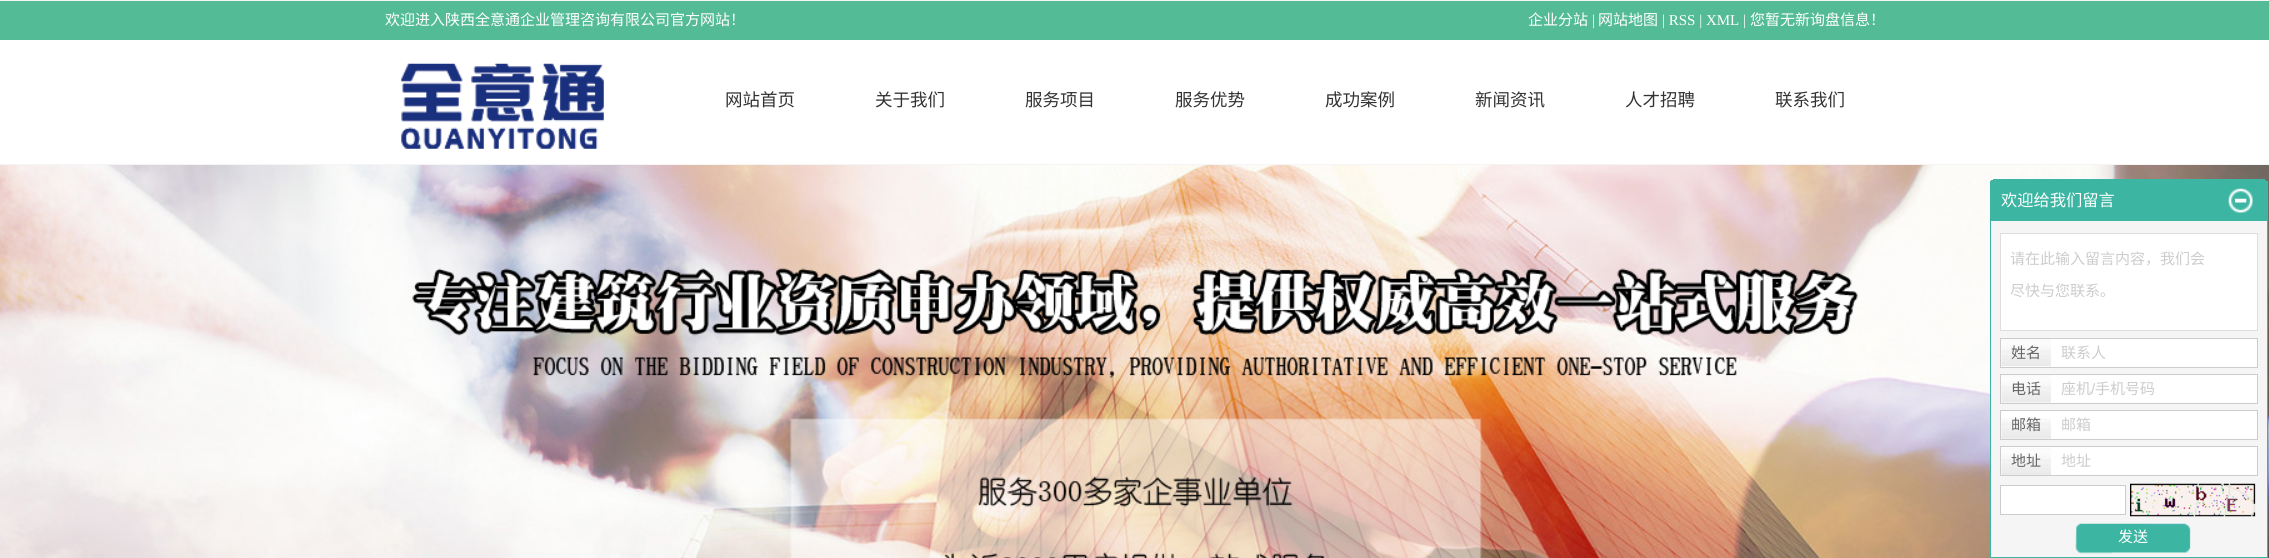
import math
import cairocffi as cairo

surface = cairo.ImageSurface(cairo.FORMAT_RGB24, 2269, 558)
ctx = cairo.Context(surface)
options = cairo.FontOptions()
options.set_hint_metrics(cairo.HINT_METRICS_OFF)
options.set_hint_style(cairo.HINT_STYLE_NONE)
ctx.set_font_options(options)
ctx.set_miter_limit(4)


def rgb(r, g, b):
    ctx.set_source_rgb(r / 255, g / 255, b / 255)


def face(family, size, italic, bold):
    ctx.select_font_face(family, cairo.FONT_SLANT_ITALIC if italic else cairo.FONT_SLANT_NORMAL, cairo.FONT_WEIGHT_BOLD if bold else cairo.FONT_WEIGHT_NORMAL)
    ctx.set_font_size(size)


def label(x, y, s):
    ctx.move_to(x, y)
    ctx.show_text(s)


def rect(x, y, w, h):
    ctx.rectangle(x, y, w, h)
    ctx.fill()


def image(path, x, y, w, h):
    ctx.save()
    ctx.set_source_surface(cairo.ImageSurface.create_from_png(path), x, y)
    ctx.rectangle(x, y, w, h)
    ctx.fill()
    ctx.restore()


rgb(255, 255, 255)
ctx.paint()
rgb(245, 245, 245)
rect(0, 0, 2269, 1)
rect(0, 164, 2269, 1)
rgb(84, 187, 151)
rect(0, 1, 2269, 39)
face('Noto Sans CJK SC', 15, 0, 0)
rgb(255, 255, 255)
label(385, 25, '欢迎进入陕西全意通企业管理咨询有限公司官方网站！')
label(1528, 25, '企业分站')
face('Liberation Serif', 15, 0, 0)
label(1592, 25, '|')
face('Noto Sans CJK SC', 15, 0, 0)
label(1598, 25, '网站地图')
face('Liberation Serif', 15, 0, 0)
label(1662, 25, '| RSS | XML |')
face('Noto Sans CJK SC', 15, 0, 0)
label(1750, 25, '您暂无新询盘信息！')
image('image0.png', 401, 63, 203, 86)
face('Noto Sans CJK SC', 17.5, 0, 0)
rgb(51, 51, 51)
label(725, 106, '网站首页')
label(875, 106, '关于我们')
label(1025, 106, '服务项目')
label(1175, 106, '服务优势')
label(1325, 106, '成功案例')
label(1475, 106, '新闻资讯')
label(1625, 106, '人才招聘')
label(1775, 106, '联系我们')
image('image1.png', 0, 165, 2269, 393)
rgb(60, 182, 162)
rect(1993, 179, 272, 1)
rect(1991, 180, 275, 1)
rect(1990, 181, 278, 39)
face('Noto Sans CJK SC', 16.25, 0, 0)
rgb(255, 255, 255)
label(2001, 206, '欢迎给我们留言')
image('image2.png', 2228, 188, 25, 25)
rgb(245, 245, 245)
ctx.rectangle(1990.5, 220.5, 277, 337)
ctx.fill_preserve()
rgb(60, 182, 162)
ctx.set_line_width(1)
ctx.stroke()
rgb(255, 255, 255)
ctx.rectangle(2000.5, 233.5, 257, 97)
ctx.fill_preserve()
rgb(222, 222, 222)
ctx.stroke()
face('Noto Sans CJK SC', 15, 0, 0)
rgb(204, 204, 204)
label(2010, 264, '请在此输入留言内容，我们会')
label(2010, 296, '尽快与您联系。')
rgb(255, 255, 255)
ctx.rectangle(2000.5, 338.5, 257, 29)
ctx.fill_preserve()
rgb(204, 204, 204)
ctx.stroke()
image('image3.png', 2001, 339, 50, 28)
rgb(102, 102, 102)
label(2011, 358, '姓名')
rgb(204, 204, 204)
label(2061, 358, '联系人')
rgb(255, 255, 255)
ctx.rectangle(2000.5, 374.5, 257, 29)
ctx.fill_preserve()
rgb(204, 204, 204)
ctx.stroke()
image('image4.png', 2001, 375, 50, 28)
rgb(102, 102, 102)
label(2011, 394, '电话')
rgb(204, 204, 204)
label(2061, 394, '座机')
face('Liberation Sans', 15, 0, 0)
label(2091, 394, '/')
face('Noto Sans CJK SC', 15, 0, 0)
label(2095, 394, '手机号码')
rgb(255, 255, 255)
ctx.rectangle(2000.5, 410.5, 257, 29)
ctx.fill_preserve()
rgb(204, 204, 204)
ctx.stroke()
image('image5.png', 2001, 418, 50, 21)
rgb(102, 102, 102)
label(2011, 430, '邮箱')
rgb(204, 204, 204)
label(2061, 430, '邮箱')
rgb(255, 255, 255)
ctx.rectangle(2000.5, 446.5, 257, 29)
ctx.fill_preserve()
rgb(204, 204, 204)
ctx.stroke()
image('image6.png', 2001, 448, 50, 27)
rgb(102, 102, 102)
label(2011, 466, '地址')
rgb(204, 204, 204)
label(2061, 466, '地址')
rgb(255, 255, 255)
ctx.rectangle(2000.5, 485.5, 125, 29)
ctx.fill_preserve()
rgb(204, 204, 204)
ctx.stroke()
image('image7.png', 2130, 483, 126, 34)
image('image8.png', 2075, 523, 116, 31)
rgb(255, 255, 255)
label(2118, 542, '发送')
image('image9.png', 2268, 288, 1, 9)
image('image10.png', 2268, 296, 1, 262)
surface.write_to_png('render.png')
